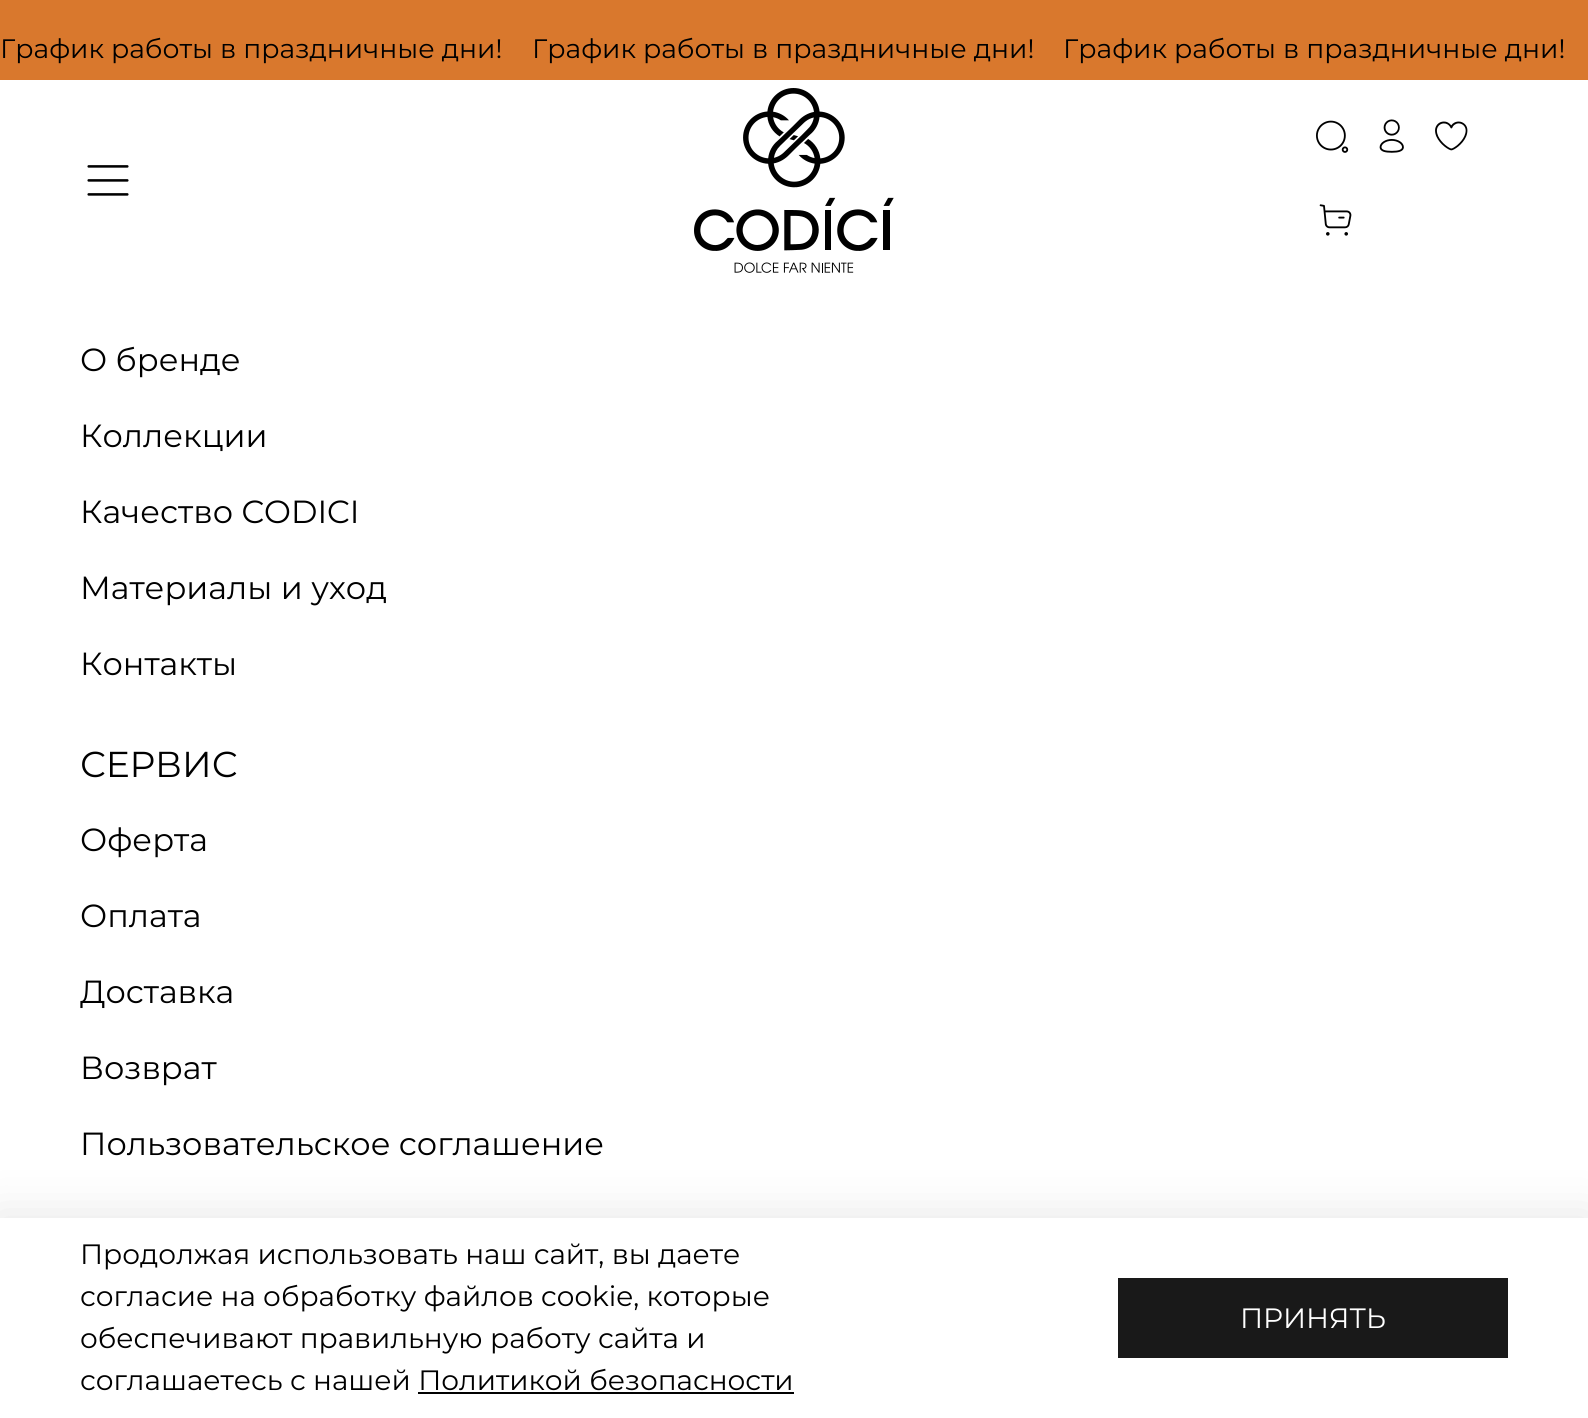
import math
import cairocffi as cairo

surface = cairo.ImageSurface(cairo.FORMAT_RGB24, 1588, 1418)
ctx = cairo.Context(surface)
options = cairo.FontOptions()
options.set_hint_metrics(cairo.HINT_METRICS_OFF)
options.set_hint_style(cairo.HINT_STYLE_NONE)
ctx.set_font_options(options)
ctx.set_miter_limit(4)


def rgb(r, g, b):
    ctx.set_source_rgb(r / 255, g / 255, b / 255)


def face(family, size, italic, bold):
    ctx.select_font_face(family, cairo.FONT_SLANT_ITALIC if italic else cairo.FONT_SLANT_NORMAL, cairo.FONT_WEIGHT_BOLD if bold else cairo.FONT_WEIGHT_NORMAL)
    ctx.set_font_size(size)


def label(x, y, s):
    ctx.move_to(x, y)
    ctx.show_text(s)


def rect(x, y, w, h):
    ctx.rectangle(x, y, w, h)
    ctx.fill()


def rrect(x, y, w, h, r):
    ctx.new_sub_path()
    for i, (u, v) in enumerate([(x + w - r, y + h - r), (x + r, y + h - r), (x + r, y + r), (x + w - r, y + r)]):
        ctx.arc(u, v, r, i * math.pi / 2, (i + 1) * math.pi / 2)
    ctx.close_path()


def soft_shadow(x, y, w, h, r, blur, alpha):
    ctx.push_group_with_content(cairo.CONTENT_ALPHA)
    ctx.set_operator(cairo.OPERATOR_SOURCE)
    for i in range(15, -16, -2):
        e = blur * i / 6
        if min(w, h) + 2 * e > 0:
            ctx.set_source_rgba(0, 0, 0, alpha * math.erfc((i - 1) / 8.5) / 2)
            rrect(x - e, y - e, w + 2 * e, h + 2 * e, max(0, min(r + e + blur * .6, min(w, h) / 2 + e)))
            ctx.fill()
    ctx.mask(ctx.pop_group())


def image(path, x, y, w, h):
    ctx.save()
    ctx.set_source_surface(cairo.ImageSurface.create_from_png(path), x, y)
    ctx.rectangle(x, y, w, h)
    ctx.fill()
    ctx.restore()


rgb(255, 255, 255)
ctx.paint()
rgb(217, 120, 45)
rect(0, 0, 1588, 80)
face('Montserrat', 26.7, 0, 0)
rgb(0, 0, 0)
label(0, 58, 'График работы в праздничные дни!')
label(532, 58, 'График работы в праздничные дни!')
label(1063, 58, 'График работы в праздничные дни!')
image('image0.png', 87, 165, 42, 31)
image('image1.png', 694, 88, 200, 185)
image('image2.png', 1316, 120, 33, 33)
image('image3.png', 1379, 119, 25, 34)
image('image4.png', 1435, 121, 33, 30)
image('image5.png', 1319, 204, 33, 32)
face('Montserrat', 32, 0, 0)
label(80, 371, 'О бренде')
label(80, 447, 'Коллекции')
label(80, 523, 'Качество CODICI')
label(80, 599, 'Материалы и уход')
label(80, 675, 'Контакты')
face('Montserrat', 36, 0, 0)
label(80, 777, 'СЕРВИС')
face('Montserrat', 32, 0, 0)
label(80, 851, 'Оферта')
label(80, 927, 'Оплата')
label(80, 1003, 'Доставка')
label(80, 1079, 'Возврат')
label(80, 1155, 'Пользовательское соглашение')
rgb(0, 0, 0)
soft_shadow(-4, 1212, 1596, 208, 0, 23, 0.09)
rgb(255, 255, 255)
rect(0, 1218, 1588, 200)
face('Montserrat', 28, 0, 0)
rgb(0, 0, 0)
label(80, 1264, 'Продолжая использовать наш сайт, вы даете')
label(80, 1306, 'согласие на обработку файлов cookie, которые')
label(80, 1348, 'обеспечивают правильную работу сайта и')
label(80, 1390, 'соглашаетесь с нашей Политикой безопасности')
rect(418, 1392, 376, 2)
rgb(25, 25, 25)
rect(1118, 1278, 390, 80)
rgb(255, 255, 255)
label(1240, 1328, 'ПРИНЯТЬ')
surface.write_to_png('render.png')
